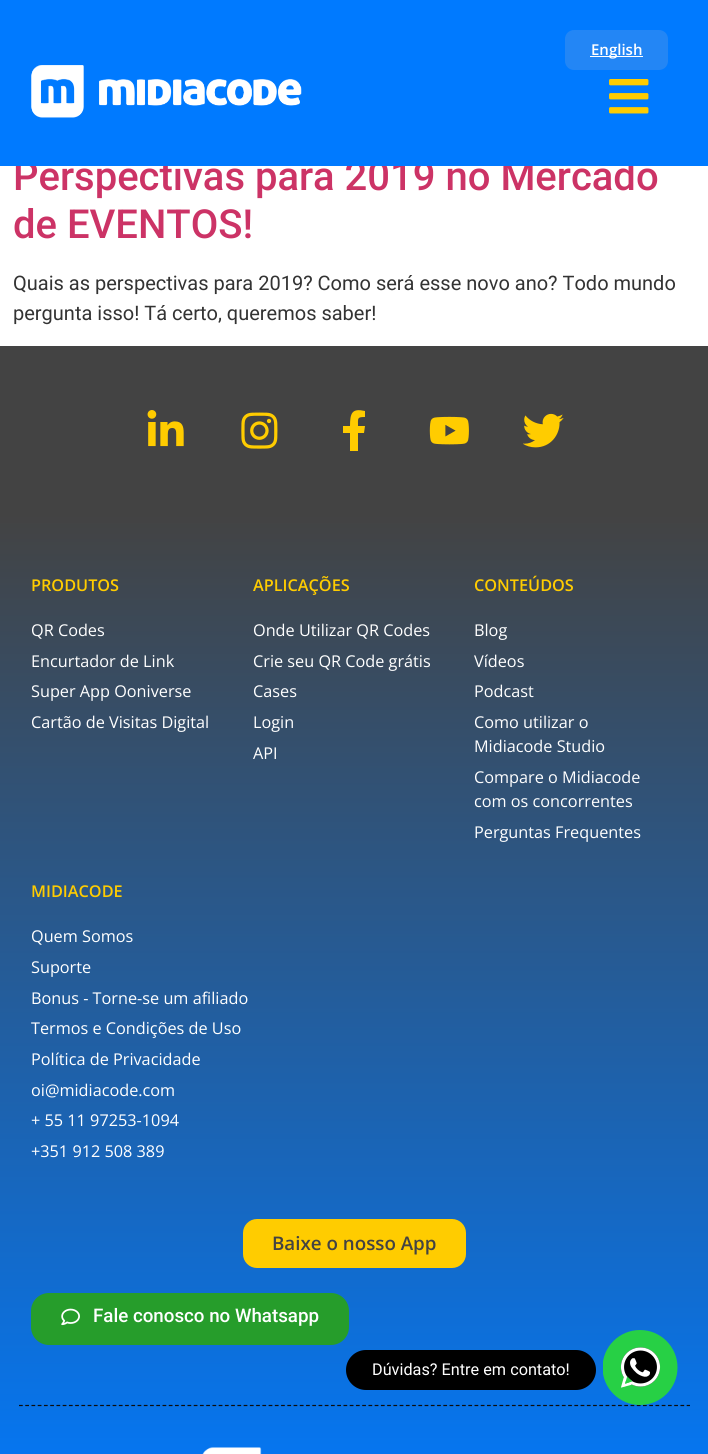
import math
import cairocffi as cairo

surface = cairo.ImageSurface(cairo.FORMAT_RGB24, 708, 1454)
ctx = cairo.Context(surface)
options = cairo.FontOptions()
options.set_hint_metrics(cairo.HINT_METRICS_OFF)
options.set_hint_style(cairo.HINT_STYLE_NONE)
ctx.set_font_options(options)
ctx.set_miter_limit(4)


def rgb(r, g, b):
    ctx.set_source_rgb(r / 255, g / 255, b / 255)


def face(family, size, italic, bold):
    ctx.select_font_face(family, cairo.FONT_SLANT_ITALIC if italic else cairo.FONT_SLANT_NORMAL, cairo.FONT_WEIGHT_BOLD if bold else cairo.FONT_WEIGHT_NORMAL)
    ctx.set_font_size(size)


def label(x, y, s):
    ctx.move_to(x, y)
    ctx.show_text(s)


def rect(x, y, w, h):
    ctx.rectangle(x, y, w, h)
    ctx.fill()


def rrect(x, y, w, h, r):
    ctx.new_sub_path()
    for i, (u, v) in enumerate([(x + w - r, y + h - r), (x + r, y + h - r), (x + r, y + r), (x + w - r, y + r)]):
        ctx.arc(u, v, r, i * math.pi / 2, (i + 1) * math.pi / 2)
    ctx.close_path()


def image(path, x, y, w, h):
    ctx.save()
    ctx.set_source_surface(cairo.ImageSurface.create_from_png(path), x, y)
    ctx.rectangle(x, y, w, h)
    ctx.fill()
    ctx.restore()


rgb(255, 255, 255)
ctx.paint()
face('Roboto Medium', 40, 0, 0)
rgb(204, 51, 102)
label(13, 190, 'Perspectivas para 2019 no Mercado')
rgb(0, 122, 255)
rect(0, 0, 708, 166)
rgb(35, 134, 245)
rrect(565, 30, 103, 40, 9)
ctx.fill()
rgb(255, 255, 255)
rect(590, 56, 53, 1)
face('Open Sans SemiBold', 15, 0, 0)
label(591, 55, 'English')
image('image0.png', 609, 79, 40, 35)
image('image1.png', 31, 65, 271, 53)
gradient = cairo.LinearGradient(354, 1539, 354, 515)
gradient.add_color_stop_rgba(0, 0, 0.478, 1, 1)
gradient.add_color_stop_rgba(1, 0.263, 0.263, 0.263, 1)
ctx.set_source(gradient)
rect(0, 515, 708, 939)
rgb(0, 0, 0)
rrect(346, 1350, 250, 40, 20)
ctx.fill()
face('Roboto', 16.25, 0, 0)
rgb(255, 255, 255)
label(372, 1375, 'Dúvidas? Entre em contato!')
ctx.new_path()
ctx.move_to(19, 1405.5)
ctx.line_to(690, 1405.5)
rgb(12, 13, 14)
ctx.set_line_width(1.2)
ctx.set_dash([3.75, 2.49])
ctx.stroke()
image('image2.png', 603, 1330, 75, 75)
face('Roboto Medium', 40, 0, 0)
rgb(204, 51, 102)
label(13, 238, 'de EVENTOS!')
face('Roboto', 20, 0, 0)
rgb(51, 51, 51)
label(13, 290, 'Quais as perspectivas para 2019? Como será esse novo ano? Todo mundo')
label(13, 320, 'pergunta isso! Tá certo, queremos saber!')
rgb(67, 67, 67)
rect(0, 346, 708, 169)
image('image3.png', 147, 410, 37, 37)
image('image4.png', 241, 412, 37, 37)
rgb(255, 204, 0)
ctx.new_path()
ctx.move_to(364, 433)
ctx.line_to(365, 426)
ctx.line_to(358, 426)
ctx.curve_to(358, 418, 357, 417, 365, 417)
ctx.line_to(365, 411)
ctx.curve_to(352, 408, 350, 413, 350, 426)
ctx.line_to(343, 426)
ctx.line_to(343, 433)
ctx.line_to(350, 433)
ctx.line_to(350, 451)
ctx.line_to(358, 451)
ctx.line_to(358, 433)
ctx.close_path()
ctx.fill()
image('image5.png', 429, 416, 40, 29)
image('image6.png', 523, 413, 41, 35)
face('Open Sans SemiBold', 16.25, 0, 0)
label(31, 591, 'PRODUTOS')
face('Open Sans', 16.25, 0, 0)
rgb(255, 255, 255)
label(31, 636, 'QR Codes')
label(31, 667, 'Encurtador de Link')
label(31, 697, 'Super App Ooniverse')
label(31, 728, 'Cartão de Visitas Digital')
face('Open Sans SemiBold', 16.25, 0, 0)
rgb(255, 204, 0)
label(253, 591, 'APLICAÇÕES')
face('Open Sans', 16.25, 0, 0)
rgb(255, 255, 255)
label(253, 636, 'Onde Utilizar QR Codes')
label(253, 667, 'Crie seu QR Code grátis')
label(253, 697, 'Cases')
label(253, 728, 'Login')
label(253, 759, 'API')
face('Open Sans SemiBold', 16.25, 0, 0)
rgb(255, 204, 0)
label(474, 591, 'CONTEÚDOS')
face('Open Sans', 16.25, 0, 0)
rgb(255, 255, 255)
label(474, 636, 'Blog')
label(474, 667, 'Vídeos')
label(474, 697, 'Podcast')
label(474, 728, 'Como utilizar o')
label(474, 752, 'Midiacode Studio')
label(474, 783, 'Compare o Midiacode')
label(474, 807, 'com os concorrentes')
label(474, 838, 'Perguntas Frequentes')
face('Open Sans SemiBold', 16.25, 0, 0)
rgb(255, 204, 0)
label(31, 897, 'MIDIACODE')
face('Open Sans', 16.25, 0, 0)
rgb(255, 255, 255)
label(31, 942, 'Quem Somos')
label(31, 973, 'Suporte')
label(31, 1004, 'Bonus - Torne-se um afiliado')
label(31, 1034, 'Termos e Condições de Uso')
label(31, 1065, 'Política de Privacidade')
label(31, 1096, 'oi@midiacode.com')
label(31, 1126, '+ 55 11 97253-1094')
label(31, 1157, '+351 912 508 389')
rgb(255, 204, 0)
rrect(243, 1219, 223, 49, 14)
ctx.fill()
face('Open Sans SemiBold', 18.75, 0, 0)
rgb(67, 67, 67)
label(272, 1250, 'Baixe o nosso App')
rgb(38, 157, 43)
rrect(31, 1293, 318, 52, 18)
ctx.fill()
image('image7.png', 61, 1308, 19, 18)
face('Roboto Medium', 18.75, 0, 0)
rgb(255, 255, 255)
label(93, 1322, 'Fale conosco no Whatsapp')
image('image8.png', 202, 1447, 60, 7)
surface.write_to_png('render.png')
